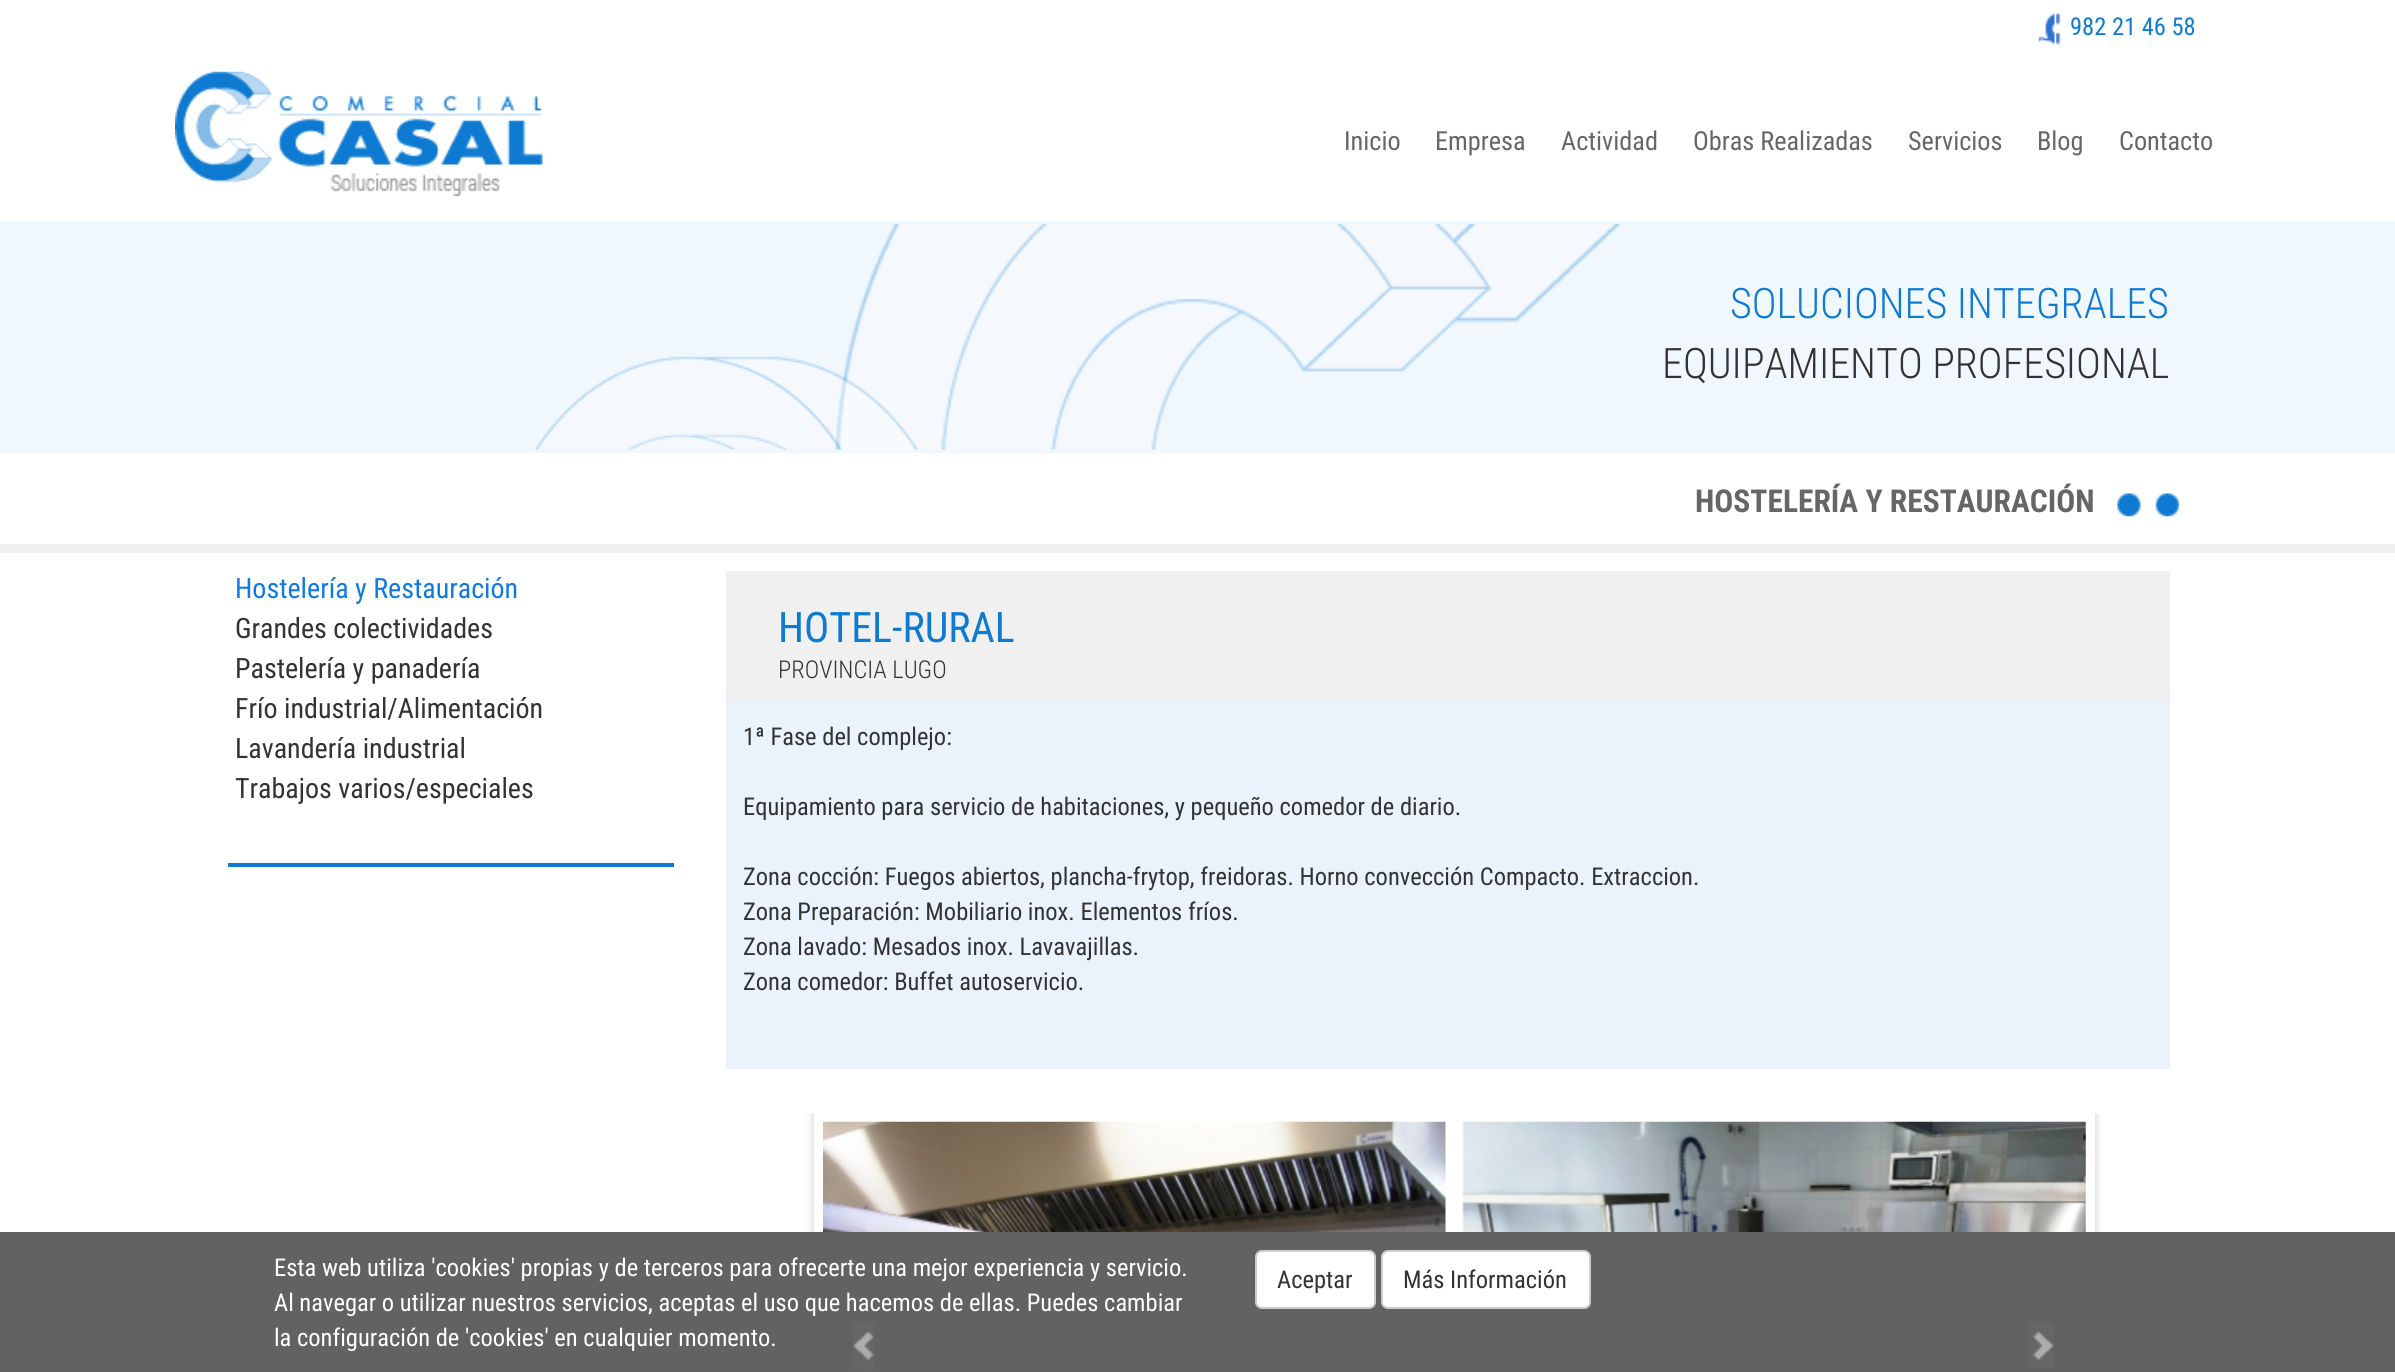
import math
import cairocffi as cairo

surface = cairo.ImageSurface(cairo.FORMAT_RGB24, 2395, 1372)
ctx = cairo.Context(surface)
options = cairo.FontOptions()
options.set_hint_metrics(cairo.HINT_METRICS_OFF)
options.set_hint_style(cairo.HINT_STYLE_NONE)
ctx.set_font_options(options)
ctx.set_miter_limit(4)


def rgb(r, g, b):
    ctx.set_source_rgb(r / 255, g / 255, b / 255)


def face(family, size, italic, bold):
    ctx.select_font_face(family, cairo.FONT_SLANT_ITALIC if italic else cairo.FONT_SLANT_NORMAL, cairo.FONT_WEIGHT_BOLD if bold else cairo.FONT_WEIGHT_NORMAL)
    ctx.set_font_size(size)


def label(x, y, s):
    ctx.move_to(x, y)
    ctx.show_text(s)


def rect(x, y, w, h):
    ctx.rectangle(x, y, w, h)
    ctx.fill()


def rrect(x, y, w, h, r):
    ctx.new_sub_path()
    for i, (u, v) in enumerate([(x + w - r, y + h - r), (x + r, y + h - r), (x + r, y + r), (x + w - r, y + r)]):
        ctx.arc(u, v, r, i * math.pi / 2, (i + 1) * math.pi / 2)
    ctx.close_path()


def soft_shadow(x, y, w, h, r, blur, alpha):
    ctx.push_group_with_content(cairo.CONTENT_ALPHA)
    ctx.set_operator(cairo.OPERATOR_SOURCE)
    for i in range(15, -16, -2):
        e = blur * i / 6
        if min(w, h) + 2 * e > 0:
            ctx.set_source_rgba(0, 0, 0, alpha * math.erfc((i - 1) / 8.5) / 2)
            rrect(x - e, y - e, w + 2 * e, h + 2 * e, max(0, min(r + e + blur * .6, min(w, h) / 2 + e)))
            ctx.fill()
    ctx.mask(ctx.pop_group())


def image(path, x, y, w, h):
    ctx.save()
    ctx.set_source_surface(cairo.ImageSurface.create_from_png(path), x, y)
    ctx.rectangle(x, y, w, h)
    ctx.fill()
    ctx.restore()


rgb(255, 255, 255)
ctx.paint()
image('image0.png', 2038, 13, 23, 32)
face('Roboto Condensed', 24.5, 0, 0)
rgb(14, 122, 210)
label(2070, 35, '982 21 46 58')
image('image1.png', 175, 71, 368, 125)
face('Roboto Condensed', 26.25, 0, 0)
rgb(102, 102, 102)
label(1344, 150, 'Inicio')
label(1435, 150, 'Empresa')
label(1561, 150, 'Actividad')
label(1693, 150, 'Obras Realizadas')
label(1908, 150, 'Servicios')
label(2037, 150, 'Blog')
label(2119, 150, 'Contacto')
rgb(240, 247, 253)
rect(0, 222, 2395, 231)
image('image2.png', 535, 224, 1086, 226)
face('Roboto Condensed Light', 42, 0, 0)
rgb(14, 122, 210)
label(1730, 318, 'SOLUCIONES INTEGRALES')
rgb(51, 51, 51)
label(1662, 378, 'EQUIPAMIENTO PROFESIONAL')
rgb(239, 239, 239)
rect(0, 544, 2395, 9)
face('Roboto Condensed', 31.5, 0, 1)
rgb(102, 102, 102)
label(1695, 512, 'HOSTELERÍA Y RESTAURACIÓN')
image('image3.png', 2117, 493, 62, 24)
rgb(14, 122, 210)
rect(228, 863, 446, 4)
face('Roboto Condensed', 28, 0, 0)
rgb(15, 122, 224)
label(235, 598, 'Hostelería y Restauración')
rgb(51, 51, 51)
label(235, 638, 'Grandes colectividades')
label(235, 678, 'Pastelería y panadería')
label(235, 718, 'Frío industrial/Alimentación')
label(235, 758, 'Lavandería industrial')
label(235, 798, 'Trabajos varios/especiales')
rgb(240, 240, 240)
rect(726, 571, 1444, 131)
face('Roboto Condensed', 42, 0, 0)
rgb(14, 122, 210)
label(778, 642, 'HOTEL-RURAL')
face('Roboto Condensed Light', 24.5, 0, 0)
rgb(51, 51, 51)
label(778, 678, 'PROVINCIA LUGO')
rgb(234, 243, 252)
rect(726, 702, 1444, 367)
face('Roboto Condensed', 24.5, 0, 0)
rgb(51, 51, 51)
label(743, 745, '1ª Fase del complejo:')
label(743, 815, 'Equipamiento para servicio de habitaciones, y pequeño comedor de diario.')
label(743, 885, 'Zona cocción: Fuegos abiertos, plancha-frytop, freidoras. Horno convección Compacto. Extraccion.')
label(743, 920, 'Zona Preparación: Mobiliario inox. Elementos fríos.')
label(743, 955, 'Zona lavado: Mesados inox. Lavavajillas.')
label(743, 990, 'Zona comedor: Buffet autoservicio.')
ctx.save()
ctx.rectangle(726, 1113, 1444, 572)
ctx.clip()
rgb(204, 204, 204)
soft_shadow(814, 1113, 1281, 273, 0, 4.5, 1)
ctx.restore()
rgb(255, 255, 255)
rect(814, 1113, 1281, 119)
image('image4.png', 823, 1121, 623, 111)
image('image5.png', 1462, 1121, 624, 111)
rgb(98, 98, 98)
rect(0, 1232, 2395, 140)
image('image6.png', 853, 1322, 21, 50)
image('image7.png', 2027, 1322, 27, 46)
rgb(255, 255, 255)
label(274, 1276, 'Esta web utiliza \'cookies\' propias y de terceros para ofrecerte una mejor experiencia y servicio.')
label(274, 1311, 'Al navegar o utilizar nuestros servicios, aceptas el uso que hacemos de ellas. Puedes cambiar')
label(274, 1346, 'la configuración de \'cookies\' en cualquier momento.')
rrect(1256, 1251, 119, 57, 6)
ctx.fill_preserve()
rgb(204, 204, 204)
ctx.stroke()
rgb(51, 51, 51)
label(1277, 1288, 'Aceptar')
rgb(255, 255, 255)
rrect(1382, 1251, 208, 57, 6)
ctx.fill_preserve()
rgb(204, 204, 204)
ctx.stroke()
rgb(51, 51, 51)
label(1403, 1288, 'Más Información')
surface.write_to_png('render.png')
